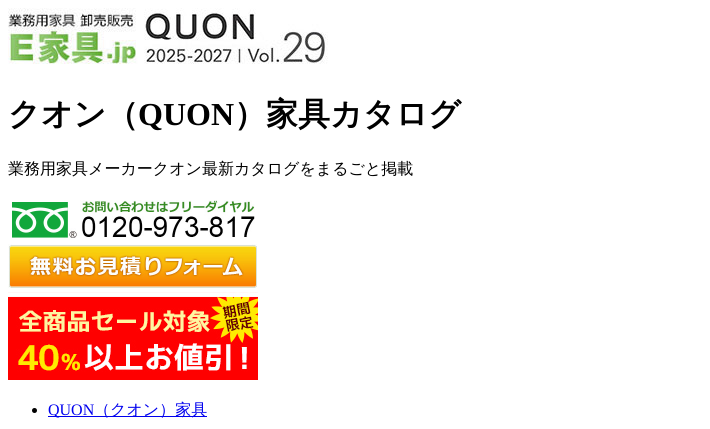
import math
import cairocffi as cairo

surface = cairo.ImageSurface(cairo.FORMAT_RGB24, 710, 429)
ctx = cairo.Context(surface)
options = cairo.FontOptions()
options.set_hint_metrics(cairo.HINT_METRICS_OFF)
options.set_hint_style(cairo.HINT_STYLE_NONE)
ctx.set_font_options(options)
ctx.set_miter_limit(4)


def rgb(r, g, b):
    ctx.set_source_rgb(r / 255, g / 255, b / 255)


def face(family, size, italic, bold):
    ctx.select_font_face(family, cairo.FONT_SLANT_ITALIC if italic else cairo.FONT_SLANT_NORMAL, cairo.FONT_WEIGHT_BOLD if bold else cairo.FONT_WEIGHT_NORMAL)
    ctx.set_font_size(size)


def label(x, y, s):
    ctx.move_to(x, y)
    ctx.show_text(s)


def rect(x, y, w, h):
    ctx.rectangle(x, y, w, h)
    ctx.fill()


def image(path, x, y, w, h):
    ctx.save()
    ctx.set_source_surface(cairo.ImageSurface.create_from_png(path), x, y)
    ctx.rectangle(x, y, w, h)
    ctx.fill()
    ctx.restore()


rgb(255, 255, 255)
ctx.paint()
image('image0.png', 8, 8, 320, 56)
face('WenQuanYi Zen Hei', 32, 0, 1)
rgb(0, 0, 0)
label(8, 125, 'クオン（')
face('Liberation Serif', 32, 0, 1)
label(138, 125, 'QUON')
face('WenQuanYi Zen Hei', 32, 0, 1)
label(234, 125, '）家具カタログ')
face('WenQuanYi Zen Hei Medium', 16, 0, 0)
label(8, 174, '業務用家具メーカークオン最新カタログをまるごと掲載')
image('image1.png', 12, 200, 243, 38)
image('image2.png', 8, 244, 249, 44)
image('image3.png', 8, 292, 250, 88)
ctx.arc(34.5, 410.5, 2.5, 0, 2 * math.pi)
ctx.fill()
rgb(0, 0, 238)
rect(48, 416, 159, 1)
face('Liberation Serif', 16, 0, 0)
label(48, 415, 'QUON')
face('WenQuanYi Zen Hei Medium', 16, 0, 0)
label(94, 415, '（クオン）家具')
surface.write_to_png('render.png')
